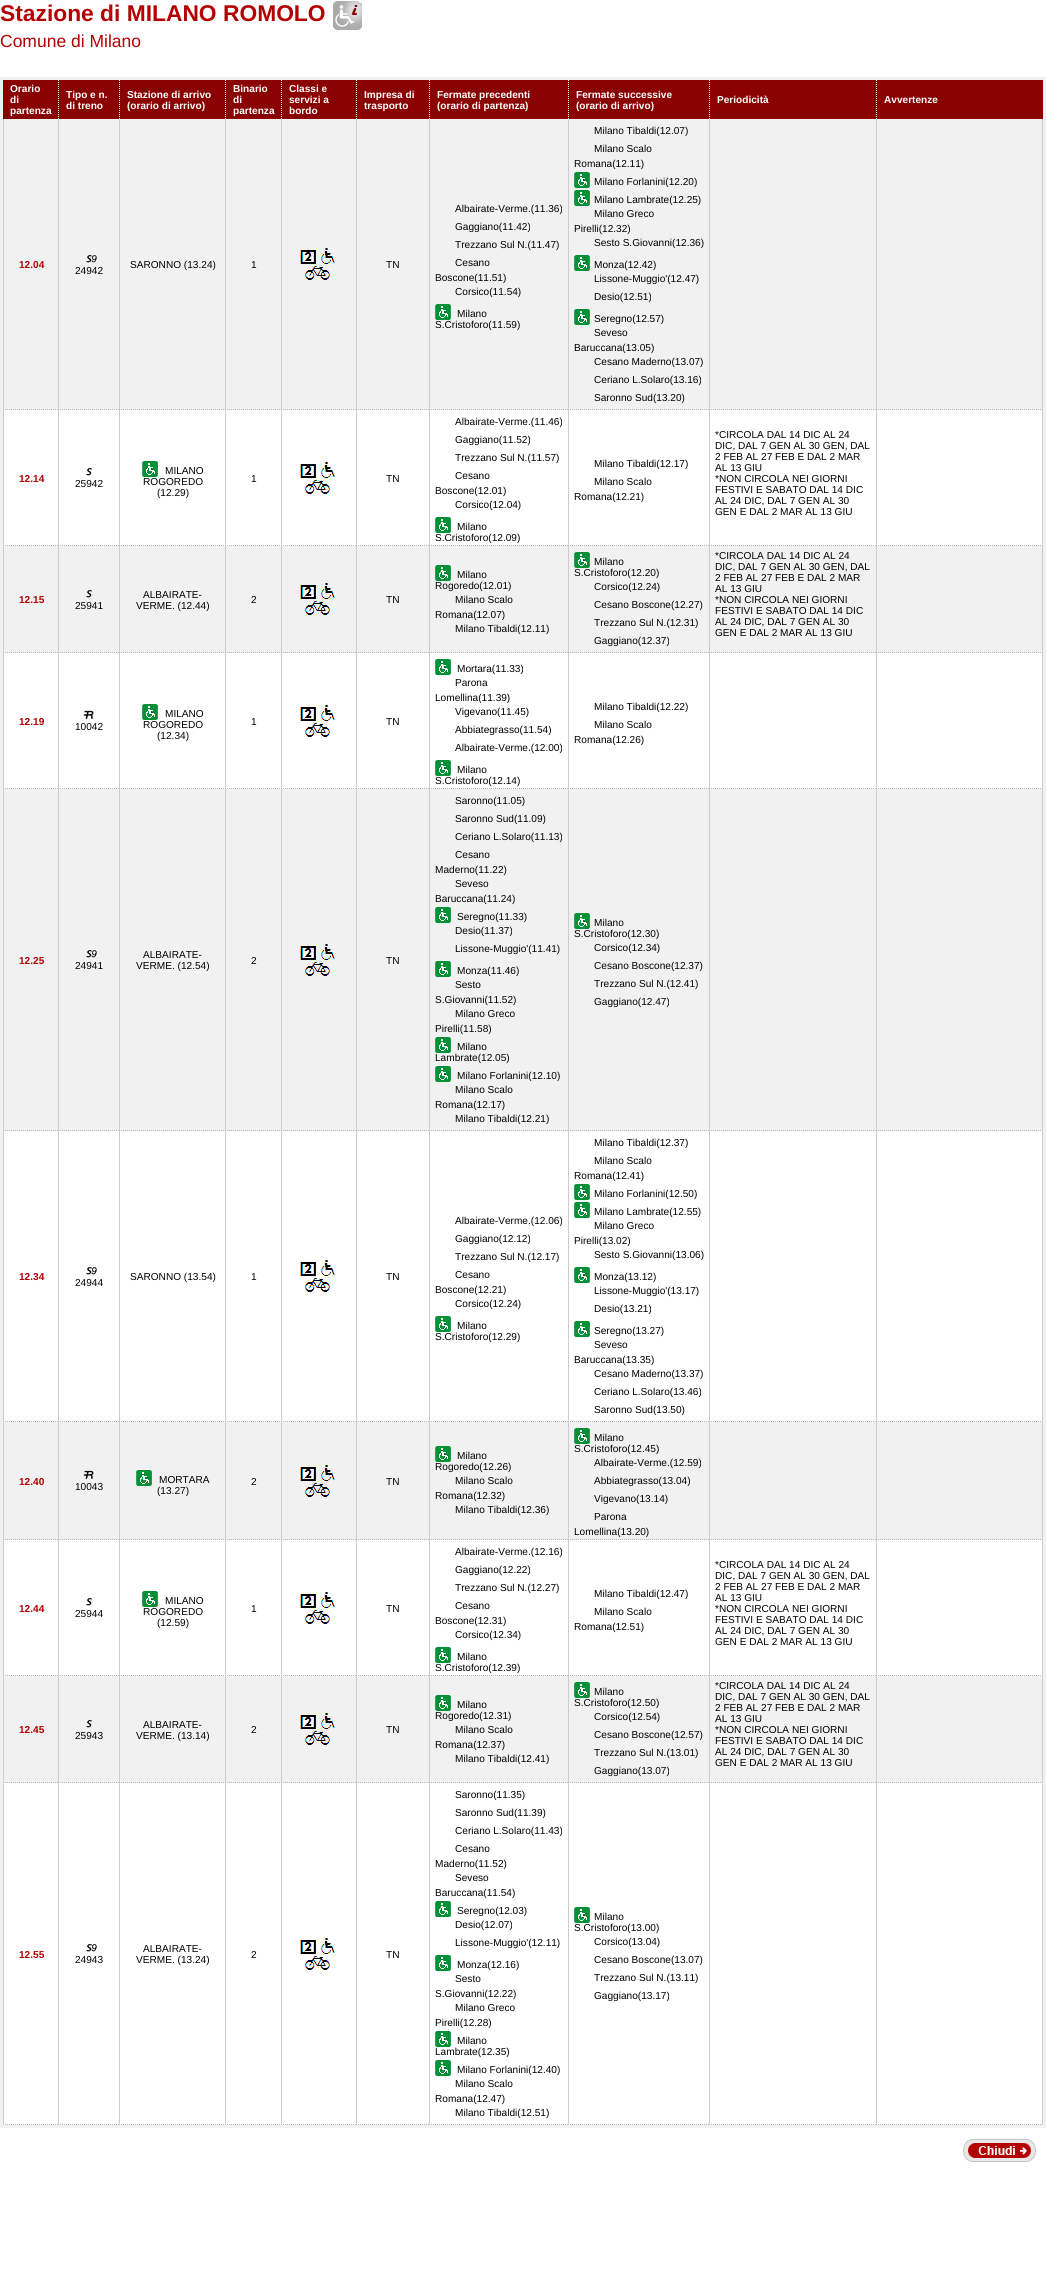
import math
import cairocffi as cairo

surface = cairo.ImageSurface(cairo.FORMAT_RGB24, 1046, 2296)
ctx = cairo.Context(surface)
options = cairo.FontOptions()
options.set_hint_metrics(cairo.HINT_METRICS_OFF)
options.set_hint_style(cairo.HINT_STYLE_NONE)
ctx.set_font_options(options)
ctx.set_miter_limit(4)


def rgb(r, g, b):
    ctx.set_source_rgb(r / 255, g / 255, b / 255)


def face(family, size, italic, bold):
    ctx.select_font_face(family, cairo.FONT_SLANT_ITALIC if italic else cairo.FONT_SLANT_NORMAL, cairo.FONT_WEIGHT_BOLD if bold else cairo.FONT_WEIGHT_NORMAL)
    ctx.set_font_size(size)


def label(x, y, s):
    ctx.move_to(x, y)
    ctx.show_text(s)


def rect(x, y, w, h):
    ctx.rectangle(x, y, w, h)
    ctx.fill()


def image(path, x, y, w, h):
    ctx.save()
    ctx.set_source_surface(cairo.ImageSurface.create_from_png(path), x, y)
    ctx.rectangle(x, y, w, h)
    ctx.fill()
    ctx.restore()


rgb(255, 255, 255)
ctx.paint()
face('Liberation Sans', 22.8, 0, 1)
rgb(179, 0, 2)
label(0, 21, 'Stazione di MILANO ROMOLO')
image('image0.png', 333, 1, 29, 29)
face('Liberation Sans', 17.5, 0, 0)
label(0, 47, 'Comune di Milano')
rgb(241, 241, 241)
rect(0, 77, 1046, 2051)
rgb(137, 1, 1)
rect(3, 80, 1040, 39)
ctx.new_path()
ctx.move_to(58.5, 80)
ctx.line_to(58.5, 119)
ctx.move_to(119.5, 80)
ctx.line_to(119.5, 119)
rgb(255, 255, 255)
ctx.set_line_width(1)
ctx.set_dash([1, 1])
ctx.stroke()
face('Liberation Sans', 10.1, 0, 1)
label(10, 92, 'Orario')
label(10, 103, 'di')
label(10, 114, 'partenza')
label(66, 98, 'Tipo e n.')
label(66, 109, 'di treno')
ctx.new_path()
ctx.move_to(225.5, 80)
ctx.line_to(225.5, 119)
ctx.move_to(281.5, 80)
ctx.line_to(281.5, 119)
ctx.stroke()
label(127, 98, 'Stazione di arrivo')
label(127, 109, '(orario di arrivo)')
label(233, 92, 'Binario')
label(233, 103, 'di')
label(233, 114, 'partenza')
ctx.new_path()
ctx.move_to(356.5, 80)
ctx.line_to(356.5, 119)
ctx.stroke()
label(289, 92, 'Classi e')
label(289, 103, 'servizi a')
label(289, 114, 'bordo')
ctx.new_path()
ctx.move_to(429.5, 80)
ctx.line_to(429.5, 119)
ctx.stroke()
label(364, 98, 'Impresa di')
label(364, 109, 'trasporto')
ctx.new_path()
ctx.move_to(568.5, 80)
ctx.line_to(568.5, 119)
ctx.stroke()
label(437, 98, 'Fermate precedenti')
label(437, 109, '(orario di partenza)')
ctx.new_path()
ctx.move_to(709.5, 80)
ctx.line_to(709.5, 119)
ctx.stroke()
label(576, 98, 'Fermate successive')
label(576, 109, '(orario di arrivo)')
ctx.new_path()
ctx.move_to(876.5, 80)
ctx.line_to(876.5, 119)
ctx.stroke()
label(717, 103, 'Periodicità')
label(884, 103, 'Avvertenze')
image('image1.png', 5, 409, 53, 1)
rgb(204, 204, 204)
rect(58, 119, 1, 2006)
rect(3, 119, 1, 2006)
rgb(179, 0, 2)
label(19, 268, '12.04')
image('image2.png', 121, 409, 103, 1)
rgb(204, 204, 204)
rect(225, 119, 1, 2006)
face('Liberation Sans', 10.1, 0, 0)
rgb(0, 0, 0)
label(130, 268, 'SARONNO (13.24)')
image('image1.png', 227, 409, 53, 1)
rgb(204, 204, 204)
rect(281, 119, 1, 2006)
rgb(0, 0, 0)
label(251, 268, '1')
image('image3.png', 283, 409, 73, 1)
rgb(204, 204, 204)
rect(356, 119, 1, 2006)
image('image4.png', 300, 250, 16, 14)
image('image5.png', 321, 248, 14, 16)
image('image6.png', 305, 266, 25, 14)
image('image7.png', 358, 409, 71, 1)
rect(429, 119, 1, 2006)
rgb(0, 0, 0)
label(386, 268, 'TN')
image('image8.png', 431, 409, 137, 1)
rgb(204, 204, 204)
rect(568, 119, 1, 2006)
rgb(0, 0, 0)
label(455, 212, 'Albairate-Verme.(11.36)')
label(455, 230, 'Gaggiano(11.42)')
label(455, 248, 'Trezzano Sul N.(11.47)')
label(455, 266, 'Cesano')
label(435, 281, 'Boscone(11.51)')
label(455, 295, 'Corsico(11.54)')
image('image9.png', 435, 304, 16, 16)
label(457, 317, 'Milano')
label(435, 328, 'S.Cristoforo(11.59)')
image('image10.png', 570, 409, 139, 1)
rgb(204, 204, 204)
rect(709, 119, 1, 2006)
rgb(0, 0, 0)
label(594, 134, 'Milano Tibaldi(12.07)')
label(594, 152, 'Milano Scalo')
label(574, 167, 'Romana(12.11)')
image('image9.png', 574, 172, 16, 16)
label(594, 185, 'Milano Forlanini(12.20)')
image('image9.png', 574, 190, 16, 16)
label(594, 203, 'Milano Lambrate(12.25)')
label(594, 217, 'Milano Greco')
label(574, 232, 'Pirelli(12.32)')
label(594, 246, 'Sesto S.Giovanni(12.36)')
image('image9.png', 574, 255, 16, 16)
label(594, 268, 'Monza(12.42)')
label(594, 282, 'Lissone-Muggio\'(12.47)')
label(594, 300, 'Desio(12.51)')
image('image9.png', 574, 309, 16, 16)
label(594, 322, 'Seregno(12.57)')
label(594, 336, 'Seveso')
label(574, 351, 'Baruccana(13.05)')
label(594, 365, 'Cesano Maderno(13.07)')
label(594, 383, 'Ceriano L.Solaro(13.16)')
label(594, 401, 'Saronno Sud(13.20)')
image('image11.png', 711, 409, 165, 1)
rgb(204, 204, 204)
rect(876, 119, 1, 2006)
image('image12.png', 878, 409, 163, 1)
rect(1042, 119, 1, 2006)
image('image13.png', 60, 409, 59, 1)
rect(119, 119, 1, 2006)
image('image14.png', 86, 255, 11, 8)
rgb(0, 0, 0)
label(75, 274, '24942')
rgb(255, 255, 255)
rect(4, 410, 54, 136)
image('image15.png', 5, 545, 53, 1)
face('Liberation Sans', 10.1, 0, 1)
rgb(179, 0, 2)
label(19, 482, '12.14')
rgb(255, 255, 255)
rect(59, 410, 60, 136)
image('image16.png', 60, 545, 59, 1)
image('image17.png', 86, 468, 6, 8)
face('Liberation Sans', 10.1, 0, 0)
rgb(0, 0, 0)
label(75, 487, '25942')
rgb(255, 255, 255)
rect(120, 410, 105, 136)
image('image18.png', 121, 545, 103, 1)
image('image9.png', 142, 461, 16, 16)
rgb(0, 0, 0)
label(165, 474, 'MILANO')
label(143, 485, 'ROGOREDO')
label(157, 496, '(12.29)')
rgb(255, 255, 255)
rect(226, 410, 55, 136)
image('image15.png', 227, 545, 53, 1)
rgb(0, 0, 0)
label(251, 482, '1')
rgb(255, 255, 255)
rect(282, 410, 74, 136)
image('image19.png', 283, 545, 73, 1)
image('image4.png', 300, 464, 16, 14)
image('image20.png', 321, 462, 14, 16)
image('image21.png', 305, 480, 25, 14)
rect(357, 410, 72, 136)
image('image22.png', 358, 545, 71, 1)
rgb(0, 0, 0)
label(386, 482, 'TN')
rgb(255, 255, 255)
rect(430, 410, 138, 136)
image('image23.png', 431, 545, 137, 1)
rgb(0, 0, 0)
label(455, 425, 'Albairate-Verme.(11.46)')
label(455, 443, 'Gaggiano(11.52)')
label(455, 461, 'Trezzano Sul N.(11.57)')
label(455, 479, 'Cesano')
label(435, 494, 'Boscone(12.01)')
label(455, 508, 'Corsico(12.04)')
image('image9.png', 435, 517, 16, 16)
label(457, 530, 'Milano')
label(435, 541, 'S.Cristoforo(12.09)')
rgb(255, 255, 255)
rect(569, 410, 140, 136)
image('image24.png', 570, 545, 139, 1)
rgb(0, 0, 0)
label(594, 467, 'Milano Tibaldi(12.17)')
label(594, 485, 'Milano Scalo')
label(574, 500, 'Romana(12.21)')
rgb(255, 255, 255)
rect(710, 410, 166, 136)
image('image25.png', 711, 545, 165, 1)
rgb(0, 0, 0)
label(715, 438, '*CIRCOLA DAL 14 DIC AL 24')
label(715, 449, 'DIC, DAL 7 GEN AL 30 GEN, DAL')
label(715, 460, '2 FEB AL 27 FEB E DAL 2 MAR')
label(715, 471, 'AL 13 GIU')
label(715, 482, '*NON CIRCOLA NEI GIORNI')
label(715, 493, 'FESTIVI E SABATO DAL 14 DIC')
label(715, 504, 'AL 24 DIC, DAL 7 GEN AL 30')
label(715, 515, 'GEN E DAL 2 MAR AL 13 GIU')
rgb(255, 255, 255)
rect(877, 410, 165, 136)
image('image26.png', 878, 545, 163, 1)
image('image1.png', 5, 652, 53, 1)
face('Liberation Sans', 10.1, 0, 1)
rgb(179, 0, 2)
label(19, 603, '12.15')
image('image2.png', 121, 652, 103, 1)
face('Liberation Sans', 10.1, 0, 0)
rgb(0, 0, 0)
label(143, 598, 'ALBAIRATE-')
label(136, 609, 'VERME. (12.44)')
image('image1.png', 227, 652, 53, 1)
label(251, 603, '2')
image('image3.png', 283, 652, 73, 1)
image('image4.png', 300, 585, 16, 14)
image('image5.png', 321, 583, 14, 16)
image('image6.png', 305, 601, 25, 14)
image('image7.png', 358, 652, 71, 1)
label(386, 603, 'TN')
image('image8.png', 431, 652, 137, 1)
image('image9.png', 435, 565, 16, 16)
label(457, 578, 'Milano')
label(435, 589, 'Rogoredo(12.01)')
label(455, 603, 'Milano Scalo')
label(435, 618, 'Romana(12.07)')
label(455, 632, 'Milano Tibaldi(12.11)')
image('image10.png', 570, 652, 139, 1)
image('image9.png', 574, 552, 16, 16)
label(594, 565, 'Milano')
label(574, 576, 'S.Cristoforo(12.20)')
label(594, 590, 'Corsico(12.24)')
label(594, 608, 'Cesano Boscone(12.27)')
label(594, 626, 'Trezzano Sul N.(12.31)')
label(594, 644, 'Gaggiano(12.37)')
image('image11.png', 711, 652, 165, 1)
label(715, 559, '*CIRCOLA DAL 14 DIC AL 24')
label(715, 570, 'DIC, DAL 7 GEN AL 30 GEN, DAL')
label(715, 581, '2 FEB AL 27 FEB E DAL 2 MAR')
label(715, 592, 'AL 13 GIU')
label(715, 603, '*NON CIRCOLA NEI GIORNI')
label(715, 614, 'FESTIVI E SABATO DAL 14 DIC')
label(715, 625, 'AL 24 DIC, DAL 7 GEN AL 30')
label(715, 636, 'GEN E DAL 2 MAR AL 13 GIU')
image('image13.png', 60, 652, 59, 1)
image('image27.png', 86, 590, 6, 8)
label(75, 609, '25941')
image('image12.png', 878, 652, 163, 1)
rgb(255, 255, 255)
rect(4, 653, 54, 136)
image('image15.png', 5, 788, 53, 1)
face('Liberation Sans', 10.1, 0, 1)
rgb(179, 0, 2)
label(19, 725, '12.19')
rgb(255, 255, 255)
rect(59, 653, 60, 136)
image('image16.png', 60, 788, 59, 1)
image('image28.png', 83, 710, 11, 9)
face('Liberation Sans', 10.1, 0, 0)
rgb(0, 0, 0)
label(75, 730, '10042')
rgb(255, 255, 255)
rect(120, 653, 105, 136)
image('image18.png', 121, 788, 103, 1)
image('image9.png', 142, 704, 16, 16)
rgb(0, 0, 0)
label(165, 717, 'MILANO')
label(143, 728, 'ROGOREDO')
label(157, 739, '(12.34)')
rgb(255, 255, 255)
rect(226, 653, 55, 136)
image('image15.png', 227, 788, 53, 1)
rgb(0, 0, 0)
label(251, 725, '1')
rgb(255, 255, 255)
rect(282, 653, 74, 136)
image('image19.png', 283, 788, 73, 1)
image('image4.png', 300, 707, 16, 14)
image('image20.png', 321, 705, 14, 16)
image('image21.png', 305, 723, 25, 14)
rect(357, 653, 72, 136)
image('image22.png', 358, 788, 71, 1)
rgb(0, 0, 0)
label(386, 725, 'TN')
rgb(255, 255, 255)
rect(430, 653, 138, 136)
image('image23.png', 431, 788, 137, 1)
image('image9.png', 435, 659, 16, 16)
rgb(0, 0, 0)
label(457, 672, 'Mortara(11.33)')
label(455, 686, 'Parona')
label(435, 701, 'Lomellina(11.39)')
label(455, 715, 'Vigevano(11.45)')
label(455, 733, 'Abbiategrasso(11.54)')
label(455, 751, 'Albairate-Verme.(12.00)')
image('image9.png', 435, 760, 16, 16)
label(457, 773, 'Milano')
label(435, 784, 'S.Cristoforo(12.14)')
rgb(255, 255, 255)
rect(569, 653, 140, 136)
image('image24.png', 570, 788, 139, 1)
rgb(0, 0, 0)
label(594, 710, 'Milano Tibaldi(12.22)')
label(594, 728, 'Milano Scalo')
label(574, 743, 'Romana(12.26)')
rgb(255, 255, 255)
rect(710, 653, 166, 136)
image('image25.png', 711, 788, 165, 1)
rect(877, 653, 165, 136)
image('image26.png', 878, 788, 163, 1)
image('image1.png', 5, 1130, 53, 1)
face('Liberation Sans', 10.1, 0, 1)
rgb(179, 0, 2)
label(19, 964, '12.25')
image('image13.png', 60, 1130, 59, 1)
image('image14.png', 86, 950, 11, 8)
face('Liberation Sans', 10.1, 0, 0)
rgb(0, 0, 0)
label(75, 969, '24941')
image('image2.png', 121, 1130, 103, 1)
label(143, 958, 'ALBAIRATE-')
label(136, 969, 'VERME. (12.54)')
image('image1.png', 227, 1130, 53, 1)
label(251, 964, '2')
image('image3.png', 283, 1130, 73, 1)
image('image4.png', 300, 946, 16, 14)
image('image5.png', 321, 944, 14, 16)
image('image6.png', 305, 962, 25, 14)
image('image7.png', 358, 1130, 71, 1)
label(386, 964, 'TN')
image('image8.png', 431, 1130, 137, 1)
label(455, 804, 'Saronno(11.05)')
label(455, 822, 'Saronno Sud(11.09)')
label(455, 840, 'Ceriano L.Solaro(11.13)')
label(455, 858, 'Cesano')
label(435, 873, 'Maderno(11.22)')
label(455, 887, 'Seveso')
label(435, 902, 'Baruccana(11.24)')
image('image9.png', 435, 907, 16, 16)
label(457, 920, 'Seregno(11.33)')
label(455, 934, 'Desio(11.37)')
label(455, 952, 'Lissone-Muggio\'(11.41)')
image('image9.png', 435, 961, 16, 16)
label(457, 974, 'Monza(11.46)')
label(455, 988, 'Sesto')
label(435, 1003, 'S.Giovanni(11.52)')
label(455, 1017, 'Milano Greco')
label(435, 1032, 'Pirelli(11.58)')
image('image9.png', 435, 1037, 16, 16)
label(457, 1050, 'Milano')
label(435, 1061, 'Lambrate(12.05)')
image('image9.png', 435, 1066, 16, 16)
label(457, 1079, 'Milano Forlanini(12.10)')
label(455, 1093, 'Milano Scalo')
label(435, 1108, 'Romana(12.17)')
label(455, 1122, 'Milano Tibaldi(12.21)')
image('image10.png', 570, 1130, 139, 1)
image('image9.png', 574, 913, 16, 16)
label(594, 926, 'Milano')
label(574, 937, 'S.Cristoforo(12.30)')
label(594, 951, 'Corsico(12.34)')
label(594, 969, 'Cesano Boscone(12.37)')
label(594, 987, 'Trezzano Sul N.(12.41)')
label(594, 1005, 'Gaggiano(12.47)')
image('image11.png', 711, 1130, 165, 1)
image('image12.png', 878, 1130, 163, 1)
rgb(255, 255, 255)
rect(4, 1131, 54, 291)
image('image15.png', 5, 1421, 53, 1)
face('Liberation Sans', 10.1, 0, 1)
rgb(179, 0, 2)
label(19, 1280, '12.34')
rgb(255, 255, 255)
rect(120, 1131, 105, 291)
image('image18.png', 121, 1421, 103, 1)
face('Liberation Sans', 10.1, 0, 0)
rgb(0, 0, 0)
label(130, 1280, 'SARONNO (13.54)')
rgb(255, 255, 255)
rect(226, 1131, 55, 291)
image('image15.png', 227, 1421, 53, 1)
rgb(0, 0, 0)
label(251, 1280, '1')
rgb(255, 255, 255)
rect(282, 1131, 74, 291)
image('image19.png', 283, 1421, 73, 1)
image('image4.png', 300, 1262, 16, 14)
image('image20.png', 321, 1260, 14, 16)
image('image21.png', 305, 1278, 25, 14)
rect(357, 1131, 72, 291)
image('image22.png', 358, 1421, 71, 1)
rgb(0, 0, 0)
label(386, 1280, 'TN')
rgb(255, 255, 255)
rect(430, 1131, 138, 291)
image('image23.png', 431, 1421, 137, 1)
rgb(0, 0, 0)
label(455, 1224, 'Albairate-Verme.(12.06)')
label(455, 1242, 'Gaggiano(12.12)')
label(455, 1260, 'Trezzano Sul N.(12.17)')
label(455, 1278, 'Cesano')
label(435, 1293, 'Boscone(12.21)')
label(455, 1307, 'Corsico(12.24)')
image('image9.png', 435, 1316, 16, 16)
label(457, 1329, 'Milano')
label(435, 1340, 'S.Cristoforo(12.29)')
rgb(255, 255, 255)
rect(569, 1131, 140, 291)
image('image24.png', 570, 1421, 139, 1)
rgb(0, 0, 0)
label(594, 1146, 'Milano Tibaldi(12.37)')
label(594, 1164, 'Milano Scalo')
label(574, 1179, 'Romana(12.41)')
image('image9.png', 574, 1184, 16, 16)
label(594, 1197, 'Milano Forlanini(12.50)')
image('image9.png', 574, 1202, 16, 16)
label(594, 1215, 'Milano Lambrate(12.55)')
label(594, 1229, 'Milano Greco')
label(574, 1244, 'Pirelli(13.02)')
label(594, 1258, 'Sesto S.Giovanni(13.06)')
image('image9.png', 574, 1267, 16, 16)
label(594, 1280, 'Monza(13.12)')
label(594, 1294, 'Lissone-Muggio\'(13.17)')
label(594, 1312, 'Desio(13.21)')
image('image9.png', 574, 1321, 16, 16)
label(594, 1334, 'Seregno(13.27)')
label(594, 1348, 'Seveso')
label(574, 1363, 'Baruccana(13.35)')
label(594, 1377, 'Cesano Maderno(13.37)')
label(594, 1395, 'Ceriano L.Solaro(13.46)')
label(594, 1413, 'Saronno Sud(13.50)')
rgb(255, 255, 255)
rect(710, 1131, 166, 291)
image('image25.png', 711, 1421, 165, 1)
rect(877, 1131, 165, 291)
image('image26.png', 878, 1421, 163, 1)
rect(59, 1131, 60, 291)
image('image16.png', 60, 1421, 59, 1)
image('image29.png', 86, 1267, 11, 8)
rgb(0, 0, 0)
label(75, 1286, '24944')
image('image1.png', 5, 1539, 53, 1)
face('Liberation Sans', 10.1, 0, 1)
rgb(179, 0, 2)
label(19, 1485, '12.40')
image('image13.png', 60, 1539, 59, 1)
image('image30.png', 83, 1470, 11, 9)
face('Liberation Sans', 10.1, 0, 0)
rgb(0, 0, 0)
label(75, 1490, '10043')
image('image2.png', 121, 1539, 103, 1)
image('image9.png', 136, 1470, 16, 16)
label(159, 1483, 'MORTARA')
label(157, 1494, '(13.27)')
image('image1.png', 227, 1539, 53, 1)
label(251, 1485, '2')
image('image3.png', 283, 1539, 73, 1)
image('image4.png', 300, 1467, 16, 14)
image('image5.png', 321, 1465, 14, 16)
image('image6.png', 305, 1483, 25, 14)
image('image7.png', 358, 1539, 71, 1)
label(386, 1485, 'TN')
image('image8.png', 431, 1539, 137, 1)
image('image9.png', 435, 1446, 16, 16)
label(457, 1459, 'Milano')
label(435, 1470, 'Rogoredo(12.26)')
label(455, 1484, 'Milano Scalo')
label(435, 1499, 'Romana(12.32)')
label(455, 1513, 'Milano Tibaldi(12.36)')
image('image10.png', 570, 1539, 139, 1)
image('image9.png', 574, 1428, 16, 16)
label(594, 1441, 'Milano')
label(574, 1452, 'S.Cristoforo(12.45)')
label(594, 1466, 'Albairate-Verme.(12.59)')
label(594, 1484, 'Abbiategrasso(13.04)')
label(594, 1502, 'Vigevano(13.14)')
label(594, 1520, 'Parona')
label(574, 1535, 'Lomellina(13.20)')
image('image11.png', 711, 1539, 165, 1)
image('image12.png', 878, 1539, 163, 1)
rgb(255, 255, 255)
rect(4, 1540, 54, 136)
image('image15.png', 5, 1675, 53, 1)
face('Liberation Sans', 10.1, 0, 1)
rgb(179, 0, 2)
label(19, 1612, '12.44')
rgb(255, 255, 255)
rect(59, 1540, 60, 136)
image('image16.png', 60, 1675, 59, 1)
image('image17.png', 86, 1598, 6, 8)
face('Liberation Sans', 10.1, 0, 0)
rgb(0, 0, 0)
label(75, 1617, '25944')
rgb(255, 255, 255)
rect(120, 1540, 105, 136)
image('image18.png', 121, 1675, 103, 1)
image('image9.png', 142, 1591, 16, 16)
rgb(0, 0, 0)
label(165, 1604, 'MILANO')
label(143, 1615, 'ROGOREDO')
label(157, 1626, '(12.59)')
rgb(255, 255, 255)
rect(226, 1540, 55, 136)
image('image15.png', 227, 1675, 53, 1)
rgb(0, 0, 0)
label(251, 1612, '1')
rgb(255, 255, 255)
rect(282, 1540, 74, 136)
image('image19.png', 283, 1675, 73, 1)
image('image4.png', 300, 1594, 16, 14)
image('image20.png', 321, 1592, 14, 16)
image('image21.png', 305, 1610, 25, 14)
rect(357, 1540, 72, 136)
image('image22.png', 358, 1675, 71, 1)
rgb(0, 0, 0)
label(386, 1612, 'TN')
rgb(255, 255, 255)
rect(430, 1540, 138, 136)
image('image23.png', 431, 1675, 137, 1)
rgb(0, 0, 0)
label(455, 1555, 'Albairate-Verme.(12.16)')
label(455, 1573, 'Gaggiano(12.22)')
label(455, 1591, 'Trezzano Sul N.(12.27)')
label(455, 1609, 'Cesano')
label(435, 1624, 'Boscone(12.31)')
label(455, 1638, 'Corsico(12.34)')
image('image9.png', 435, 1647, 16, 16)
label(457, 1660, 'Milano')
label(435, 1671, 'S.Cristoforo(12.39)')
rgb(255, 255, 255)
rect(569, 1540, 140, 136)
image('image24.png', 570, 1675, 139, 1)
rgb(0, 0, 0)
label(594, 1597, 'Milano Tibaldi(12.47)')
label(594, 1615, 'Milano Scalo')
label(574, 1630, 'Romana(12.51)')
rgb(255, 255, 255)
rect(710, 1540, 166, 136)
image('image25.png', 711, 1675, 165, 1)
rgb(0, 0, 0)
label(715, 1568, '*CIRCOLA DAL 14 DIC AL 24')
label(715, 1579, 'DIC, DAL 7 GEN AL 30 GEN, DAL')
label(715, 1590, '2 FEB AL 27 FEB E DAL 2 MAR')
label(715, 1601, 'AL 13 GIU')
label(715, 1612, '*NON CIRCOLA NEI GIORNI')
label(715, 1623, 'FESTIVI E SABATO DAL 14 DIC')
label(715, 1634, 'AL 24 DIC, DAL 7 GEN AL 30')
label(715, 1645, 'GEN E DAL 2 MAR AL 13 GIU')
rgb(255, 255, 255)
rect(877, 1540, 165, 136)
image('image26.png', 878, 1675, 163, 1)
image('image1.png', 5, 1782, 53, 1)
face('Liberation Sans', 10.1, 0, 1)
rgb(179, 0, 2)
label(19, 1733, '12.45')
image('image2.png', 121, 1782, 103, 1)
face('Liberation Sans', 10.1, 0, 0)
rgb(0, 0, 0)
label(143, 1728, 'ALBAIRATE-')
label(136, 1739, 'VERME. (13.14)')
image('image1.png', 227, 1782, 53, 1)
label(251, 1733, '2')
image('image3.png', 283, 1782, 73, 1)
image('image4.png', 300, 1715, 16, 14)
image('image5.png', 321, 1713, 14, 16)
image('image6.png', 305, 1731, 25, 14)
image('image7.png', 358, 1782, 71, 1)
label(386, 1733, 'TN')
image('image8.png', 431, 1782, 137, 1)
image('image9.png', 435, 1695, 16, 16)
label(457, 1708, 'Milano')
label(435, 1719, 'Rogoredo(12.31)')
label(455, 1733, 'Milano Scalo')
label(435, 1748, 'Romana(12.37)')
label(455, 1762, 'Milano Tibaldi(12.41)')
image('image10.png', 570, 1782, 139, 1)
image('image9.png', 574, 1682, 16, 16)
label(594, 1695, 'Milano')
label(574, 1706, 'S.Cristoforo(12.50)')
label(594, 1720, 'Corsico(12.54)')
label(594, 1738, 'Cesano Boscone(12.57)')
label(594, 1756, 'Trezzano Sul N.(13.01)')
label(594, 1774, 'Gaggiano(13.07)')
image('image11.png', 711, 1782, 165, 1)
label(715, 1689, '*CIRCOLA DAL 14 DIC AL 24')
label(715, 1700, 'DIC, DAL 7 GEN AL 30 GEN, DAL')
label(715, 1711, '2 FEB AL 27 FEB E DAL 2 MAR')
label(715, 1722, 'AL 13 GIU')
label(715, 1733, '*NON CIRCOLA NEI GIORNI')
label(715, 1744, 'FESTIVI E SABATO DAL 14 DIC')
label(715, 1755, 'AL 24 DIC, DAL 7 GEN AL 30')
label(715, 1766, 'GEN E DAL 2 MAR AL 13 GIU')
image('image13.png', 60, 1782, 59, 1)
image('image27.png', 86, 1720, 6, 8)
label(75, 1739, '25943')
image('image12.png', 878, 1782, 163, 1)
rgb(255, 255, 255)
rect(4, 1783, 54, 342)
image('image15.png', 5, 2124, 53, 1)
face('Liberation Sans', 10.1, 0, 1)
rgb(179, 0, 2)
label(19, 1958, '12.55')
rgb(255, 255, 255)
rect(59, 1783, 60, 342)
image('image16.png', 60, 2124, 59, 1)
image('image29.png', 86, 1944, 11, 8)
face('Liberation Sans', 10.1, 0, 0)
rgb(0, 0, 0)
label(75, 1963, '24943')
rgb(255, 255, 255)
rect(120, 1783, 105, 342)
image('image18.png', 121, 2124, 103, 1)
rgb(0, 0, 0)
label(143, 1952, 'ALBAIRATE-')
label(136, 1963, 'VERME. (13.24)')
rgb(255, 255, 255)
rect(226, 1783, 55, 342)
image('image15.png', 227, 2124, 53, 1)
rgb(0, 0, 0)
label(251, 1958, '2')
rgb(255, 255, 255)
rect(282, 1783, 74, 342)
image('image19.png', 283, 2124, 73, 1)
image('image4.png', 300, 1940, 16, 14)
image('image20.png', 321, 1938, 14, 16)
image('image21.png', 305, 1956, 25, 14)
rect(357, 1783, 72, 342)
image('image22.png', 358, 2124, 71, 1)
rgb(0, 0, 0)
label(386, 1958, 'TN')
rgb(255, 255, 255)
rect(430, 1783, 138, 342)
image('image23.png', 431, 2124, 137, 1)
rgb(0, 0, 0)
label(455, 1798, 'Saronno(11.35)')
label(455, 1816, 'Saronno Sud(11.39)')
label(455, 1834, 'Ceriano L.Solaro(11.43)')
label(455, 1852, 'Cesano')
label(435, 1867, 'Maderno(11.52)')
label(455, 1881, 'Seveso')
label(435, 1896, 'Baruccana(11.54)')
image('image9.png', 435, 1901, 16, 16)
label(457, 1914, 'Seregno(12.03)')
label(455, 1928, 'Desio(12.07)')
label(455, 1946, 'Lissone-Muggio\'(12.11)')
image('image9.png', 435, 1955, 16, 16)
label(457, 1968, 'Monza(12.16)')
label(455, 1982, 'Sesto')
label(435, 1997, 'S.Giovanni(12.22)')
label(455, 2011, 'Milano Greco')
label(435, 2026, 'Pirelli(12.28)')
image('image9.png', 435, 2031, 16, 16)
label(457, 2044, 'Milano')
label(435, 2055, 'Lambrate(12.35)')
image('image9.png', 435, 2060, 16, 16)
label(457, 2073, 'Milano Forlanini(12.40)')
label(455, 2087, 'Milano Scalo')
label(435, 2102, 'Romana(12.47)')
label(455, 2116, 'Milano Tibaldi(12.51)')
rgb(255, 255, 255)
rect(569, 1783, 140, 342)
image('image24.png', 570, 2124, 139, 1)
image('image9.png', 574, 1907, 16, 16)
rgb(0, 0, 0)
label(594, 1920, 'Milano')
label(574, 1931, 'S.Cristoforo(13.00)')
label(594, 1945, 'Corsico(13.04)')
label(594, 1963, 'Cesano Boscone(13.07)')
label(594, 1981, 'Trezzano Sul N.(13.11)')
label(594, 1999, 'Gaggiano(13.17)')
rgb(255, 255, 255)
rect(710, 1783, 166, 342)
image('image25.png', 711, 2124, 165, 1)
rect(877, 1783, 165, 342)
image('image26.png', 878, 2124, 163, 1)
image('image31.png', 963, 2139, 73, 23)
surface.write_to_png('render.png')
